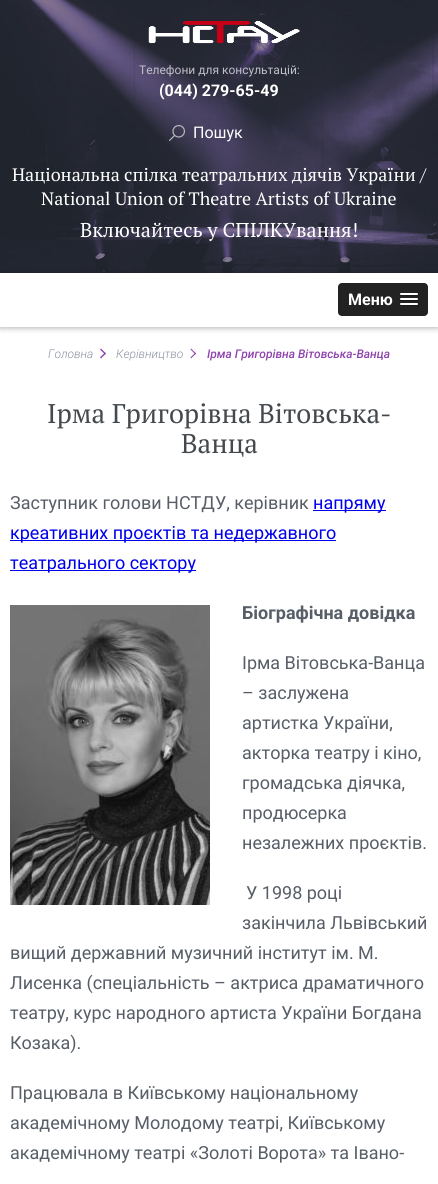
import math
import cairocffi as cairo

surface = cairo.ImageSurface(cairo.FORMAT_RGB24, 438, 1184)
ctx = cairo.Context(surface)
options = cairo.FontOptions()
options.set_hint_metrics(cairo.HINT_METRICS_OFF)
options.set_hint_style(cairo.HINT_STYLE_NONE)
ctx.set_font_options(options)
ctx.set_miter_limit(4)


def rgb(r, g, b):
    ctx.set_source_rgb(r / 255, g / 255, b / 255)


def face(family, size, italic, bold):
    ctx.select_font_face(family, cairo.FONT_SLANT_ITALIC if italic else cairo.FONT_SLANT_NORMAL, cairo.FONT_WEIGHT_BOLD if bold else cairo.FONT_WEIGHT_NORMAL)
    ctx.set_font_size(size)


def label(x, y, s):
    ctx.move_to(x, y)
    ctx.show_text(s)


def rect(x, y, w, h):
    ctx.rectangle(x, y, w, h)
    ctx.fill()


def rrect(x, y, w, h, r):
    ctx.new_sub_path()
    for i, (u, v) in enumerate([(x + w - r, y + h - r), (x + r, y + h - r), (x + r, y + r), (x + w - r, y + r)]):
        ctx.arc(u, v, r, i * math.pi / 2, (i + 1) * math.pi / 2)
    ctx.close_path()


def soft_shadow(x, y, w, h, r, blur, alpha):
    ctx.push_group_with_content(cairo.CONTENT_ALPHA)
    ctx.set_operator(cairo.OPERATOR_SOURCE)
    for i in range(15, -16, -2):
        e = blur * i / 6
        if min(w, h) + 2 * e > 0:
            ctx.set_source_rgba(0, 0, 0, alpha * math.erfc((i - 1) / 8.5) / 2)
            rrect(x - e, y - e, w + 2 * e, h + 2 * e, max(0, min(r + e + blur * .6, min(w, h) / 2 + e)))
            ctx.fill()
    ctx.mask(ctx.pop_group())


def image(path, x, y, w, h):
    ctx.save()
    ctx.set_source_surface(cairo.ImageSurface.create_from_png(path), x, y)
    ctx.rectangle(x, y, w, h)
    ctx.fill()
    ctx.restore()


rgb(255, 255, 255)
ctx.paint()
image('image0.png', 0, 0, 438, 273)
image('image1.png', 148, 21, 152, 23)
face('Roboto', 12, 0, 0)
rgb(191, 191, 200)
label(139, 74, 'Телефони для консультацій:')
face('Roboto', 16, 0, 1)
rgb(255, 255, 255)
label(159, 96, '(044) 279-65-49')
image('image2.png', 169, 125, 16, 16)
face('Roboto', 16, 0, 0)
label(193, 138, 'Пошук')
face('PT Serif', 18, 0, 0)
label(12, 181, 'Національна спілка театральних діячів України /')
label(41, 205, 'National Union of Theatre Artists of Ukraine')
face('PT Serif', 20, 0, 0)
label(80, 237, 'Включайтесь у СПІЛКУвання!')
ctx.save()
ctx.set_fill_rule(cairo.FILL_RULE_EVEN_ODD)
ctx.new_path()
ctx.move_to(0, 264)
ctx.line_to(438, 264)
ctx.line_to(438, 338)
ctx.line_to(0, 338)
ctx.close_path()
ctx.move_to(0, 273)
ctx.line_to(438, 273)
ctx.line_to(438, 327)
ctx.line_to(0, 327)
ctx.close_path()
ctx.clip()
rgb(0, 0, 0)
soft_shadow(0, 274, 438, 54, 0, 3, 0.3)
ctx.restore()
rgb(34, 34, 34)
rrect(338, 283, 90, 33, 4)
ctx.fill()
face('Roboto', 16, 0, 1)
rgb(255, 255, 255)
label(348, 305, 'Меню')
rgb(26, 26, 26)
ctx.new_path()
ctx.move_to(400, 294.5)
ctx.curve_to(399, 296.5, 403.5, 296, 403.5, 296)
ctx.line_to(414.5, 296)
ctx.curve_to(414.5, 296, 419, 296.5, 418, 294.5)
ctx.curve_to(417, 295.5, 410.5, 295, 409, 295)
ctx.curve_to(407.5, 295, 401, 295.5, 400, 294.5)
ctx.close_path()
ctx.fill()
rgb(255, 255, 255)
rrect(400, 293, 18, 2, 1)
ctx.fill()
rgb(26, 26, 26)
ctx.new_path()
ctx.move_to(400, 299.5)
ctx.curve_to(399, 301.5, 403.5, 301, 403.5, 301)
ctx.line_to(414.5, 301)
ctx.curve_to(414.5, 301, 419, 301.5, 418, 299.5)
ctx.curve_to(417, 300.5, 410.5, 300, 409, 300)
ctx.curve_to(407.5, 300, 401, 300.5, 400, 299.5)
ctx.close_path()
ctx.fill()
rgb(255, 255, 255)
rrect(400, 298, 18, 2, 1)
ctx.fill()
rgb(26, 26, 26)
ctx.new_path()
ctx.move_to(400, 304.5)
ctx.curve_to(399, 306.5, 403.5, 306, 403.5, 306)
ctx.line_to(414.5, 306)
ctx.curve_to(414.5, 306, 419, 306.5, 418, 304.5)
ctx.curve_to(417, 305.5, 410.5, 305, 409, 305)
ctx.curve_to(407.5, 305, 401, 305.5, 400, 304.5)
ctx.close_path()
ctx.fill()
rgb(255, 255, 255)
rrect(400, 303, 18, 2, 1)
ctx.fill()
face('Roboto Light', 12, 1, 0)
rgb(137, 145, 160)
label(48, 358, 'Головна')
rgb(142, 68, 173)
ctx.new_path()
ctx.move_to(100, 357.5)
ctx.line_to(105, 352.5)
ctx.line_to(106, 353.5)
ctx.line_to(101, 358.5)
ctx.close_path()
ctx.fill()
ctx.new_path()
ctx.move_to(101, 348.5)
ctx.line_to(106, 353.5)
ctx.line_to(105, 354.5)
ctx.line_to(100, 349.5)
ctx.close_path()
ctx.fill()
rgb(137, 145, 160)
label(116, 358, 'Керівництво')
rgb(142, 68, 173)
ctx.new_path()
ctx.move_to(190.5, 357.5)
ctx.line_to(195.5, 352.5)
ctx.line_to(196, 353.5)
ctx.line_to(191, 358.5)
ctx.close_path()
ctx.fill()
ctx.new_path()
ctx.move_to(191, 348.5)
ctx.line_to(196, 353.5)
ctx.line_to(195.5, 354.5)
ctx.line_to(190.5, 349.5)
ctx.close_path()
ctx.fill()
face('Roboto Medium', 12, 1, 0)
label(207, 358, 'Ірма Григорівна Вітовська-Ванца')
face('PT Serif', 27, 0, 0)
rgb(68, 73, 77)
label(47, 423, 'Ірма Григорівна Вітовська-')
label(181, 453, 'Ванца')
face('Roboto', 18, 0, 0)
rgb(88, 94, 103)
label(10, 509, 'Заступник голови НСТДУ, керівник')
rgb(0, 0, 238)
rect(313, 510, 73, 1)
label(313, 509, 'напряму')
rect(10, 540, 326, 1)
label(10, 539, 'креативних проєктів та недержавного')
rect(10, 570, 186, 1)
label(10, 569, 'театрального сектору')
image('image3.png', 10, 605, 200, 300)
face('Roboto', 18, 0, 1)
rgb(88, 94, 103)
label(242, 619, 'Біографічна довідка')
face('Roboto', 18, 0, 0)
label(242, 669, 'Ірма Вітовська-Ванца')
label(242, 699, '– заслужена')
label(242, 729, 'артистка України,')
label(242, 759, 'акторка театру і кіно,')
label(242, 789, 'громадська діячка,')
label(242, 819, 'продюсерка')
label(242, 849, 'незалежних проєктів.')
label(246, 899, 'У 1998 році')
label(242, 929, 'закінчила Львівський')
label(10, 959, 'вищий державний музичний інститут ім. М.')
label(10, 989, 'Лисенка (спеціальність – актриса драматичного')
label(10, 1019, 'театру, курс народного артиста України Богдана')
label(10, 1049, 'Козака).')
label(10, 1099, 'Працювала в Київському національному')
label(10, 1129, 'академічному Молодому театрі, Київському')
label(10, 1159, 'академічному театрі «Золоті Ворота» та Івано-')
surface.write_to_png('render.png')
